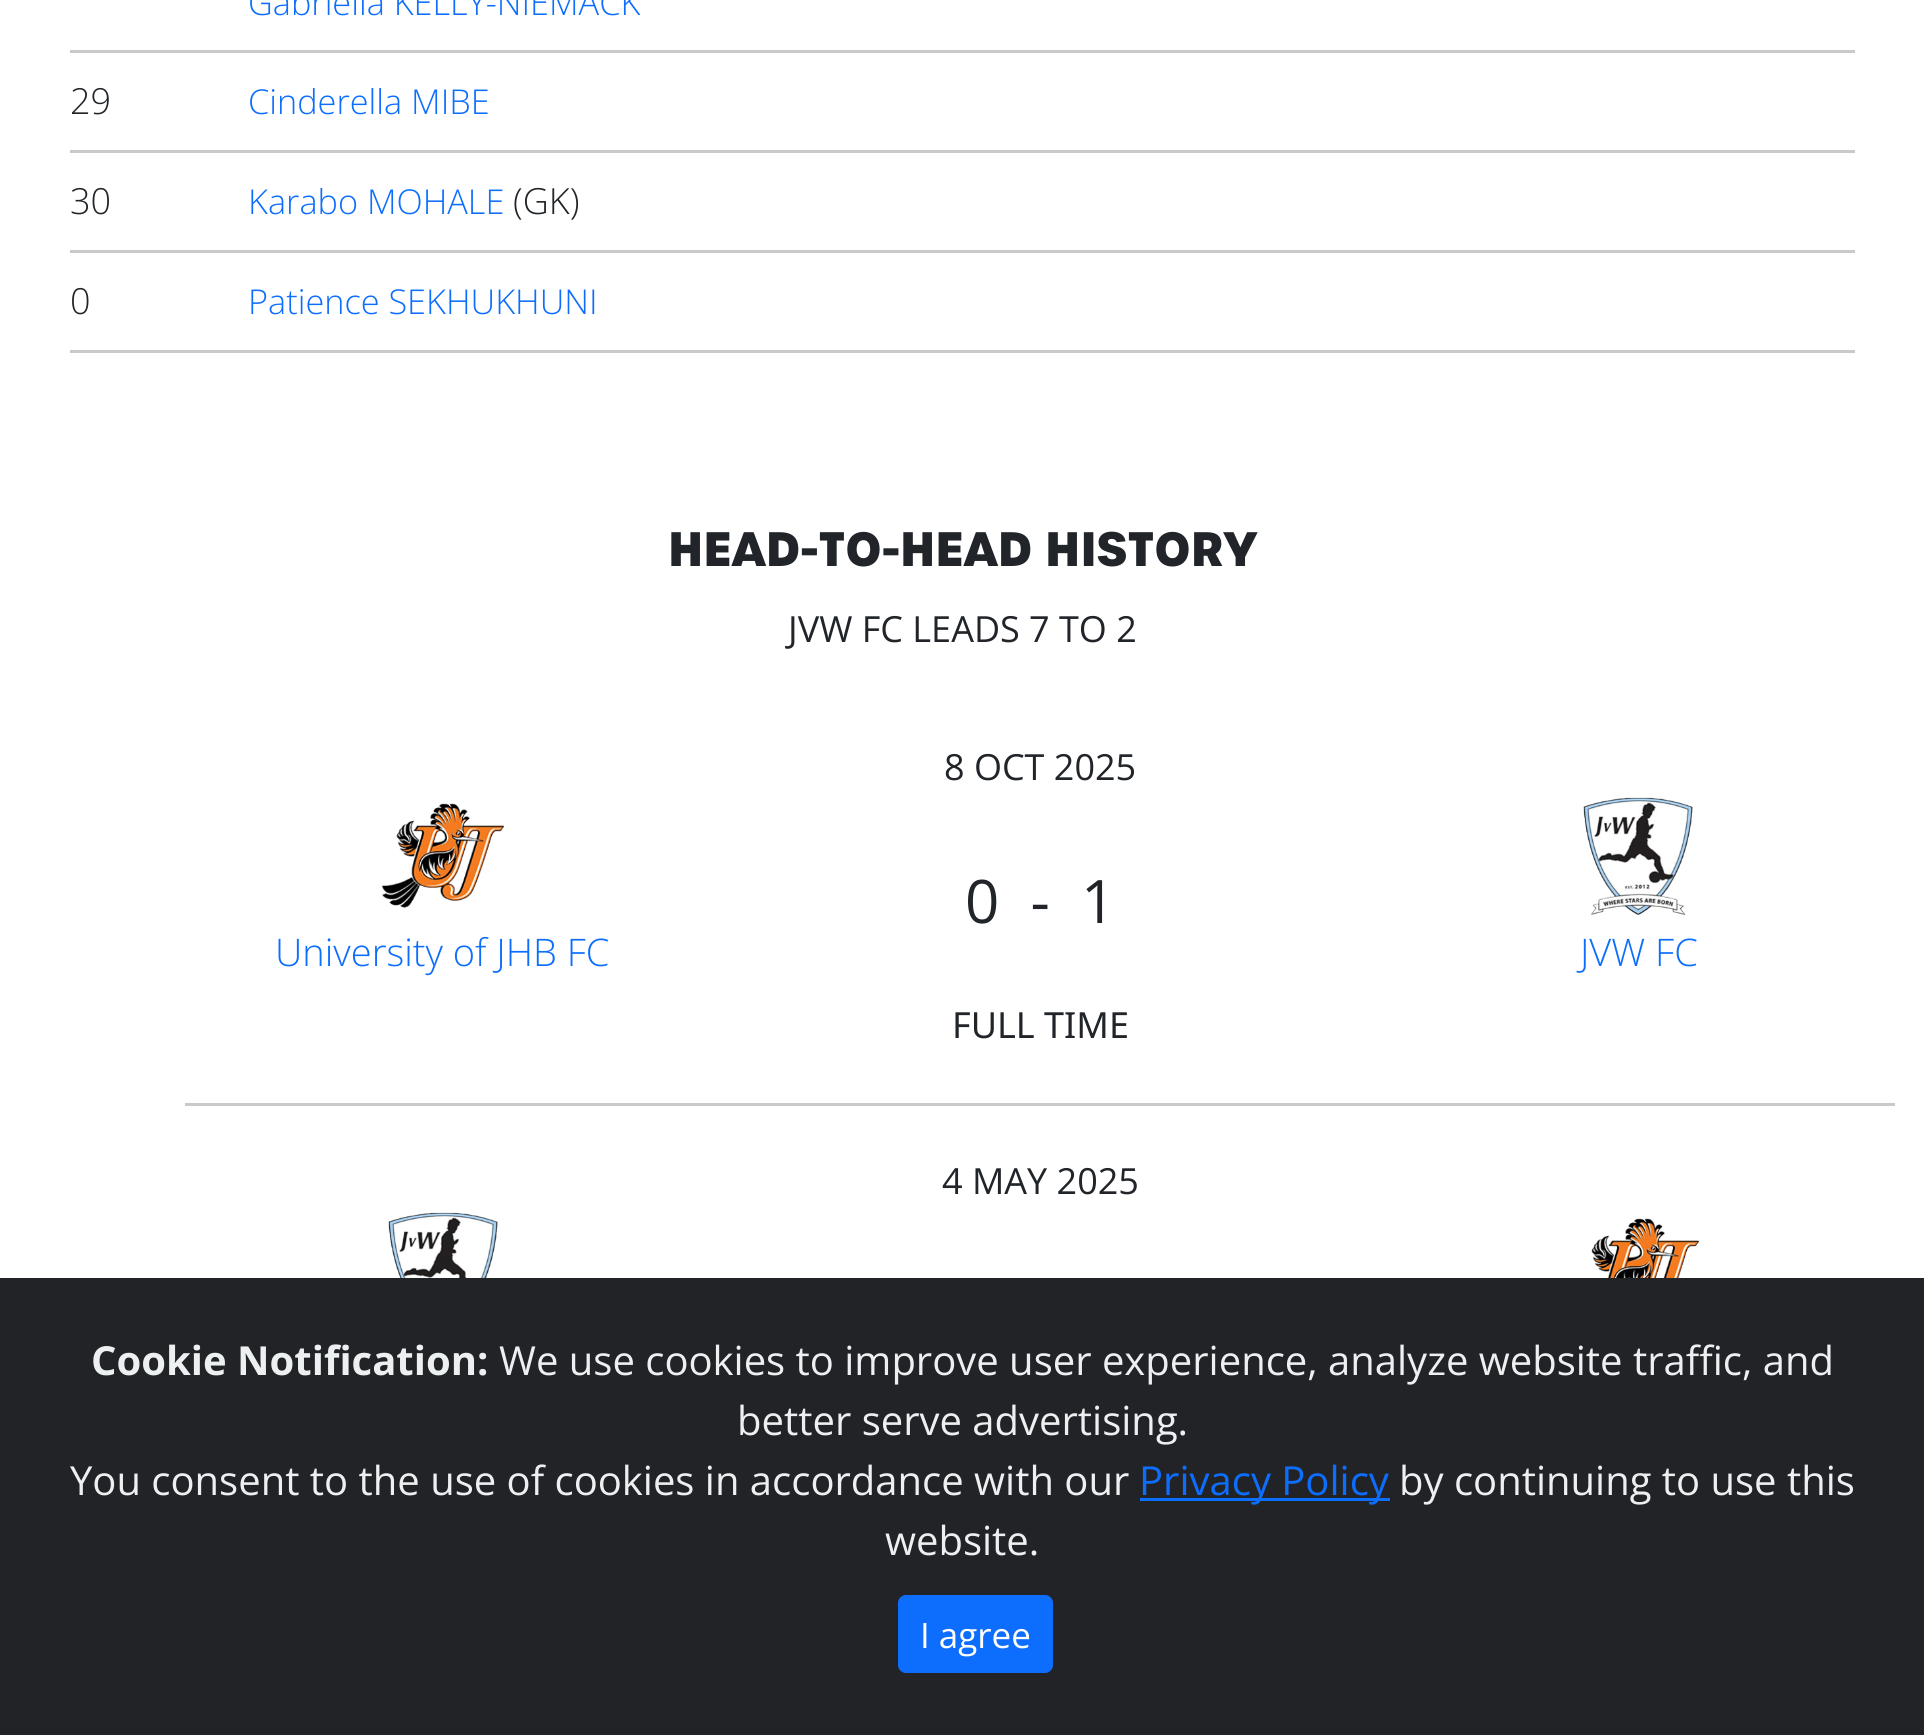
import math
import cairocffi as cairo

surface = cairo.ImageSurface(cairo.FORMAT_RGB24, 1924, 1735)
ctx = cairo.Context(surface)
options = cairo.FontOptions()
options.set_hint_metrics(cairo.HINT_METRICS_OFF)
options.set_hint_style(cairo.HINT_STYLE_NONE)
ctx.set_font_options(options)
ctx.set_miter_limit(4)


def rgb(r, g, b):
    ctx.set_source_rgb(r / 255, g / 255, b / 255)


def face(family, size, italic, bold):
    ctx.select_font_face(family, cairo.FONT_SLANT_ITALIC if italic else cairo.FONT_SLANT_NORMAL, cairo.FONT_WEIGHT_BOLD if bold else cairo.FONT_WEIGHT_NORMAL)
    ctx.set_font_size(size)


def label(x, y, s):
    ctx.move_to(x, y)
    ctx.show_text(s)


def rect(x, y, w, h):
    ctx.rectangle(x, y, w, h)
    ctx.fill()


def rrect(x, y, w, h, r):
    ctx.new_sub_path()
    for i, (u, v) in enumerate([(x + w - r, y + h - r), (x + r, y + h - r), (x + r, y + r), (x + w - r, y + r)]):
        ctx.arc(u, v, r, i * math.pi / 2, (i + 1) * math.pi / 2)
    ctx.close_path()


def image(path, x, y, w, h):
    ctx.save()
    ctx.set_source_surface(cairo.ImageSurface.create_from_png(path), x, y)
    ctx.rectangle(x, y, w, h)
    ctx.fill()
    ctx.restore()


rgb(255, 255, 255)
ctx.paint()
face('Open Sans Light', 34.25, 0, 0)
rgb(13, 110, 253)
label(248, 15, 'Gabriella KELLY-NIEMACK')
rgb(200, 201, 202)
rect(70, 50, 1785, 3)
face('Open Sans Light', 36, 0, 0)
rgb(33, 37, 41)
label(70, 114, '29')
face('Open Sans Light', 34.25, 0, 0)
rgb(13, 110, 253)
label(248, 114, 'Cinderella MIBE')
rgb(200, 201, 202)
rect(70, 150, 1785, 3)
face('Open Sans Light', 36, 0, 0)
rgb(33, 37, 41)
label(70, 214, '30')
face('Open Sans Light', 34.25, 0, 0)
rgb(13, 110, 253)
label(248, 214, 'Karabo MOHALE')
face('Open Sans Light', 36, 0, 0)
rgb(33, 37, 41)
label(513, 214, '(GK)')
rgb(200, 201, 202)
rect(70, 250, 1785, 3)
rgb(33, 37, 41)
label(70, 314, '0')
face('Open Sans Light', 34.25, 0, 0)
rgb(13, 110, 253)
label(248, 314, 'Patience SEKHUKHUNI')
rgb(200, 201, 202)
rect(70, 350, 1785, 3)
face('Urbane', 46.7, 0, 1)
rgb(33, 37, 41)
label(668, 566, 'HEAD-TO-HEAD HISTORY')
face('Open Sans', 36, 0, 0)
label(788, 642, 'JVW FC LEADS 7 TO 2')
label(944, 780, '8 OCT 2025')
image('image0.png', 382, 803, 123, 106)
face('Open Sans', 60, 0, 0)
label(965, 923, '0  -  1')
image('image1.png', 1583, 797, 110, 118)
face('Open Sans Light', 38, 0, 0)
rgb(13, 110, 253)
label(275, 966, 'University of JHB FC')
label(1580, 966, 'JVW FC')
face('Noto Sans', 36, 0, 0)
rgb(33, 37, 41)
label(952, 1038, 'FULL TIME')
rgb(200, 201, 202)
rect(185, 1103, 1710, 3)
face('Open Sans', 36, 0, 0)
rgb(33, 37, 41)
label(942, 1194, '4 MAY 2025')
image('image2.png', 388, 1212, 110, 66)
image('image3.png', 1591, 1218, 109, 60)
rgb(33, 35, 39)
rect(0, 1278, 1924, 457)
face('Open Sans', 40, 0, 1)
rgb(236, 240, 241)
label(91, 1375, 'Cookie Notification:')
face('Open Sans', 40, 0, 0)
label(499, 1375, 'We use cookies to improve user experience, analyze website traffic, and')
label(737, 1435, 'better serve advertising.')
label(70, 1495, 'You consent to the use of cookies in accordance with our')
rgb(13, 110, 253)
rect(1140, 1498, 250, 3)
label(1139, 1495, 'Privacy Policy')
rgb(236, 240, 241)
label(1399, 1495, 'by continuing to use this')
label(885, 1555, 'website.')
rgb(13, 110, 253)
rrect(899.5, 1596.5, 152, 75, 6.5)
ctx.fill_preserve()
ctx.set_line_width(3)
ctx.stroke()
face('Open Sans', 35, 0, 0)
rgb(255, 255, 255)
label(920, 1648, 'I agree')
surface.write_to_png('render.png')
